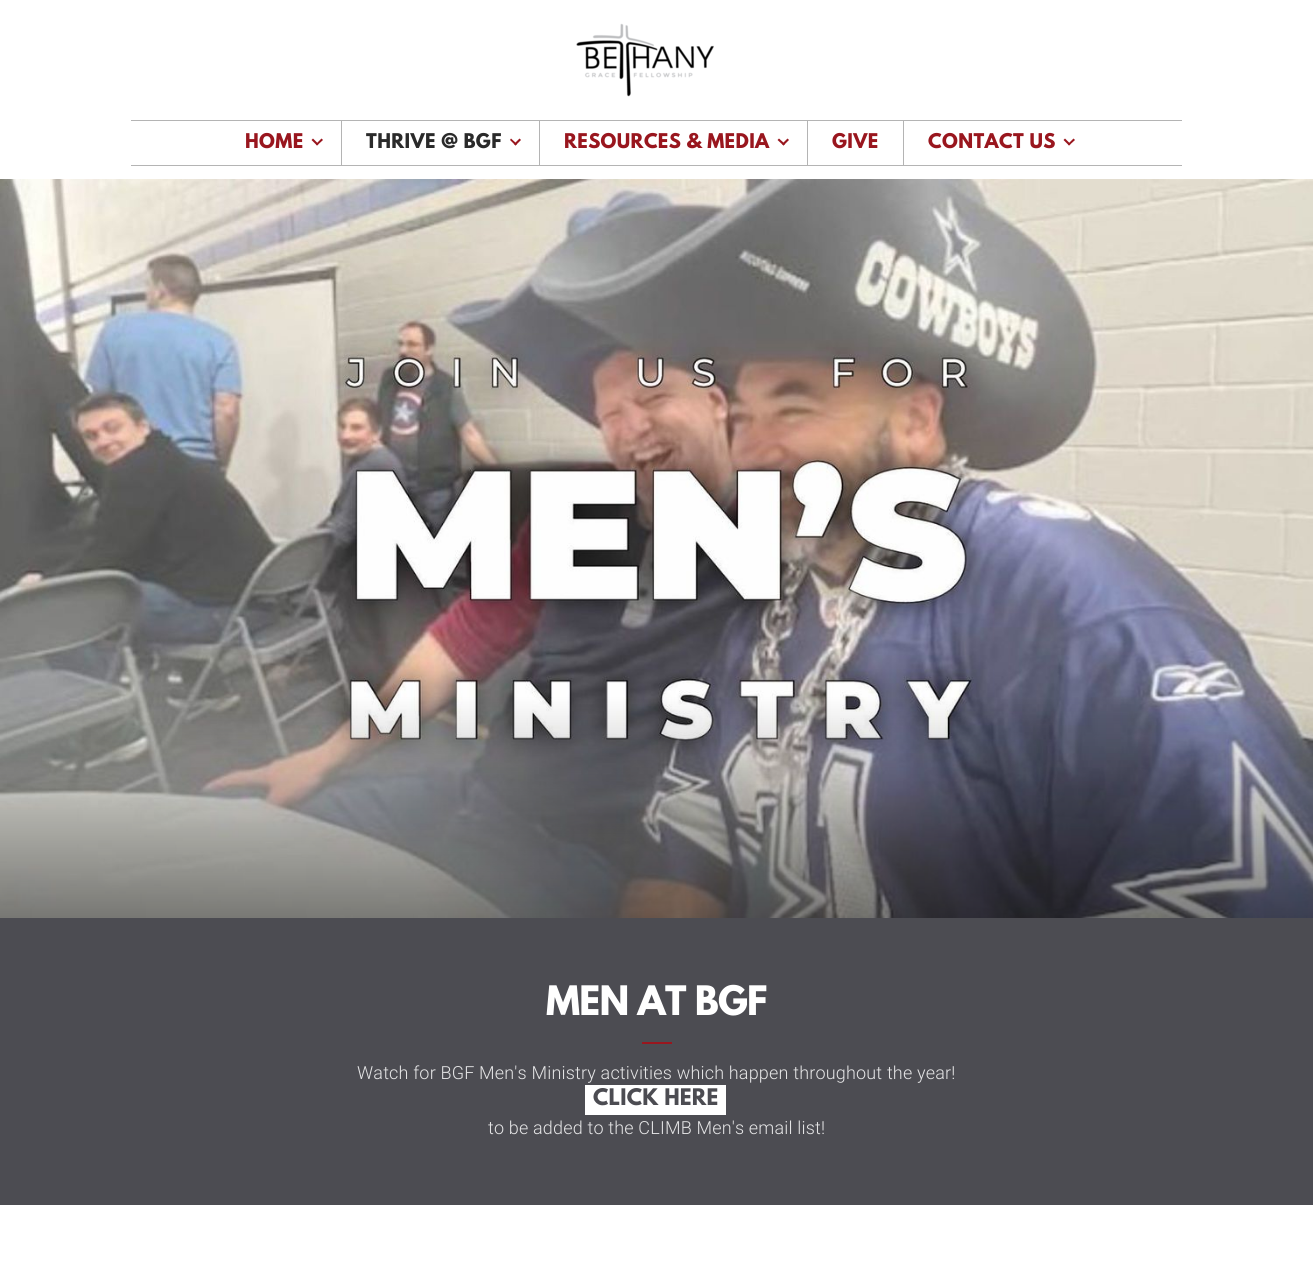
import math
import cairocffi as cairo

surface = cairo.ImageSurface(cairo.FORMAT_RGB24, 1313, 1277)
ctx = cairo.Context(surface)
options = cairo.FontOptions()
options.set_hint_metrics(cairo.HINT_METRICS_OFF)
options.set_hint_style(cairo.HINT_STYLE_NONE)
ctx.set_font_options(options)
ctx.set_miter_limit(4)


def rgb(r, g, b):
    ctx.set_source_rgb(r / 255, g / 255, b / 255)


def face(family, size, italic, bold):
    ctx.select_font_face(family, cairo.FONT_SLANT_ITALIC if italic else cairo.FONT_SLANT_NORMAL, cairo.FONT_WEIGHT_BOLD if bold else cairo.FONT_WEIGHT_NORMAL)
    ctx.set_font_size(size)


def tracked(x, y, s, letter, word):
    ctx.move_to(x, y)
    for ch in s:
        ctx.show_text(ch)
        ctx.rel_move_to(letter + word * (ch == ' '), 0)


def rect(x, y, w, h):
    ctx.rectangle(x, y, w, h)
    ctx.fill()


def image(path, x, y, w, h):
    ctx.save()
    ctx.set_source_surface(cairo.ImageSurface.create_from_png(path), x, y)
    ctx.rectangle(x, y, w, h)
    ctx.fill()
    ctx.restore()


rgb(255, 255, 255)
ctx.paint()
image('image0.png', 576, 23, 138, 74)
rgb(180, 180, 180)
rect(131, 120, 1051, 1)
rect(131, 165, 1051, 1)
face('League Spartan', 18, 0, 1)
rgb(153, 22, 30)
tracked(245, 148, 'HOME', 0.4, 0)
ctx.new_path()
ctx.move_to(321.5, 138.5)
ctx.line_to(323, 140)
ctx.line_to(317, 145.5)
ctx.line_to(316, 144)
ctx.close_path()
ctx.fill()
ctx.new_path()
ctx.move_to(313, 138.5)
ctx.line_to(318.5, 144)
ctx.line_to(317, 145.5)
ctx.line_to(311.5, 140)
ctx.close_path()
ctx.fill()
rgb(180, 180, 180)
rect(341, 121, 1, 44)
rgb(42, 42, 42)
tracked(366, 148, 'THRIVE @ BGF', 0.4, 0)
rgb(153, 22, 30)
ctx.new_path()
ctx.move_to(519.5, 138.5)
ctx.line_to(521, 140)
ctx.line_to(515.5, 145.5)
ctx.line_to(514, 144)
ctx.close_path()
ctx.fill()
ctx.new_path()
ctx.move_to(511, 138.5)
ctx.line_to(517, 144)
ctx.line_to(515.5, 145.5)
ctx.line_to(510, 140)
ctx.close_path()
ctx.fill()
rgb(180, 180, 180)
rect(539, 121, 1, 44)
rgb(153, 22, 30)
tracked(564, 148, 'RESOURCES & MEDIA', 0.4, 0)
ctx.new_path()
ctx.move_to(787.5, 138.5)
ctx.line_to(789, 140)
ctx.line_to(783.5, 145.5)
ctx.line_to(782, 144)
ctx.close_path()
ctx.fill()
ctx.new_path()
ctx.move_to(779, 138.5)
ctx.line_to(785, 144)
ctx.line_to(783.5, 145.5)
ctx.line_to(777.5, 140)
ctx.close_path()
ctx.fill()
rgb(180, 180, 180)
rect(807, 121, 1, 44)
rgb(153, 22, 30)
tracked(832, 148, 'GIVE', 0.4, 0)
rgb(180, 180, 180)
rect(903, 121, 1, 44)
rgb(153, 22, 30)
tracked(928, 148, 'CONTACT US', 0.4, 0)
ctx.new_path()
ctx.move_to(1073.5, 138.5)
ctx.line_to(1075, 140)
ctx.line_to(1069, 145.5)
ctx.line_to(1068, 144)
ctx.close_path()
ctx.fill()
ctx.new_path()
ctx.move_to(1065, 138.5)
ctx.line_to(1070.5, 144)
ctx.line_to(1069, 145.5)
ctx.line_to(1063.5, 140)
ctx.close_path()
ctx.fill()
image('image1.png', 0, 179, 1313, 739)
rgb(76, 76, 82)
rect(0, 918, 1313, 287)
face('League Spartan', 36, 0, 1)
rgb(255, 255, 255)
tracked(546, 1015, 'MEN AT BGF', -0.75, 0)
rgb(153, 22, 30)
rect(642, 1042, 30, 2)
face('Roboto Light', 18, 0, 0)
rgb(228, 228, 229)
tracked(357, 1079, 'Watch for BGF Men\'s Ministry activities which happen throughout the year!', 0.18, 0)
rgb(255, 255, 255)
rect(585, 1085, 141, 30)
face('League Spartan', 20.25, 0, 1)
rgb(76, 76, 82)
tracked(593, 1105, 'CLICK HERE', 0.25, 0)
face('Roboto Light', 18, 0, 0)
rgb(228, 228, 229)
tracked(488, 1134, 'to be added to the CLIMB Men\'s email list!', 0.18, 0)
surface.write_to_png('render.png')
